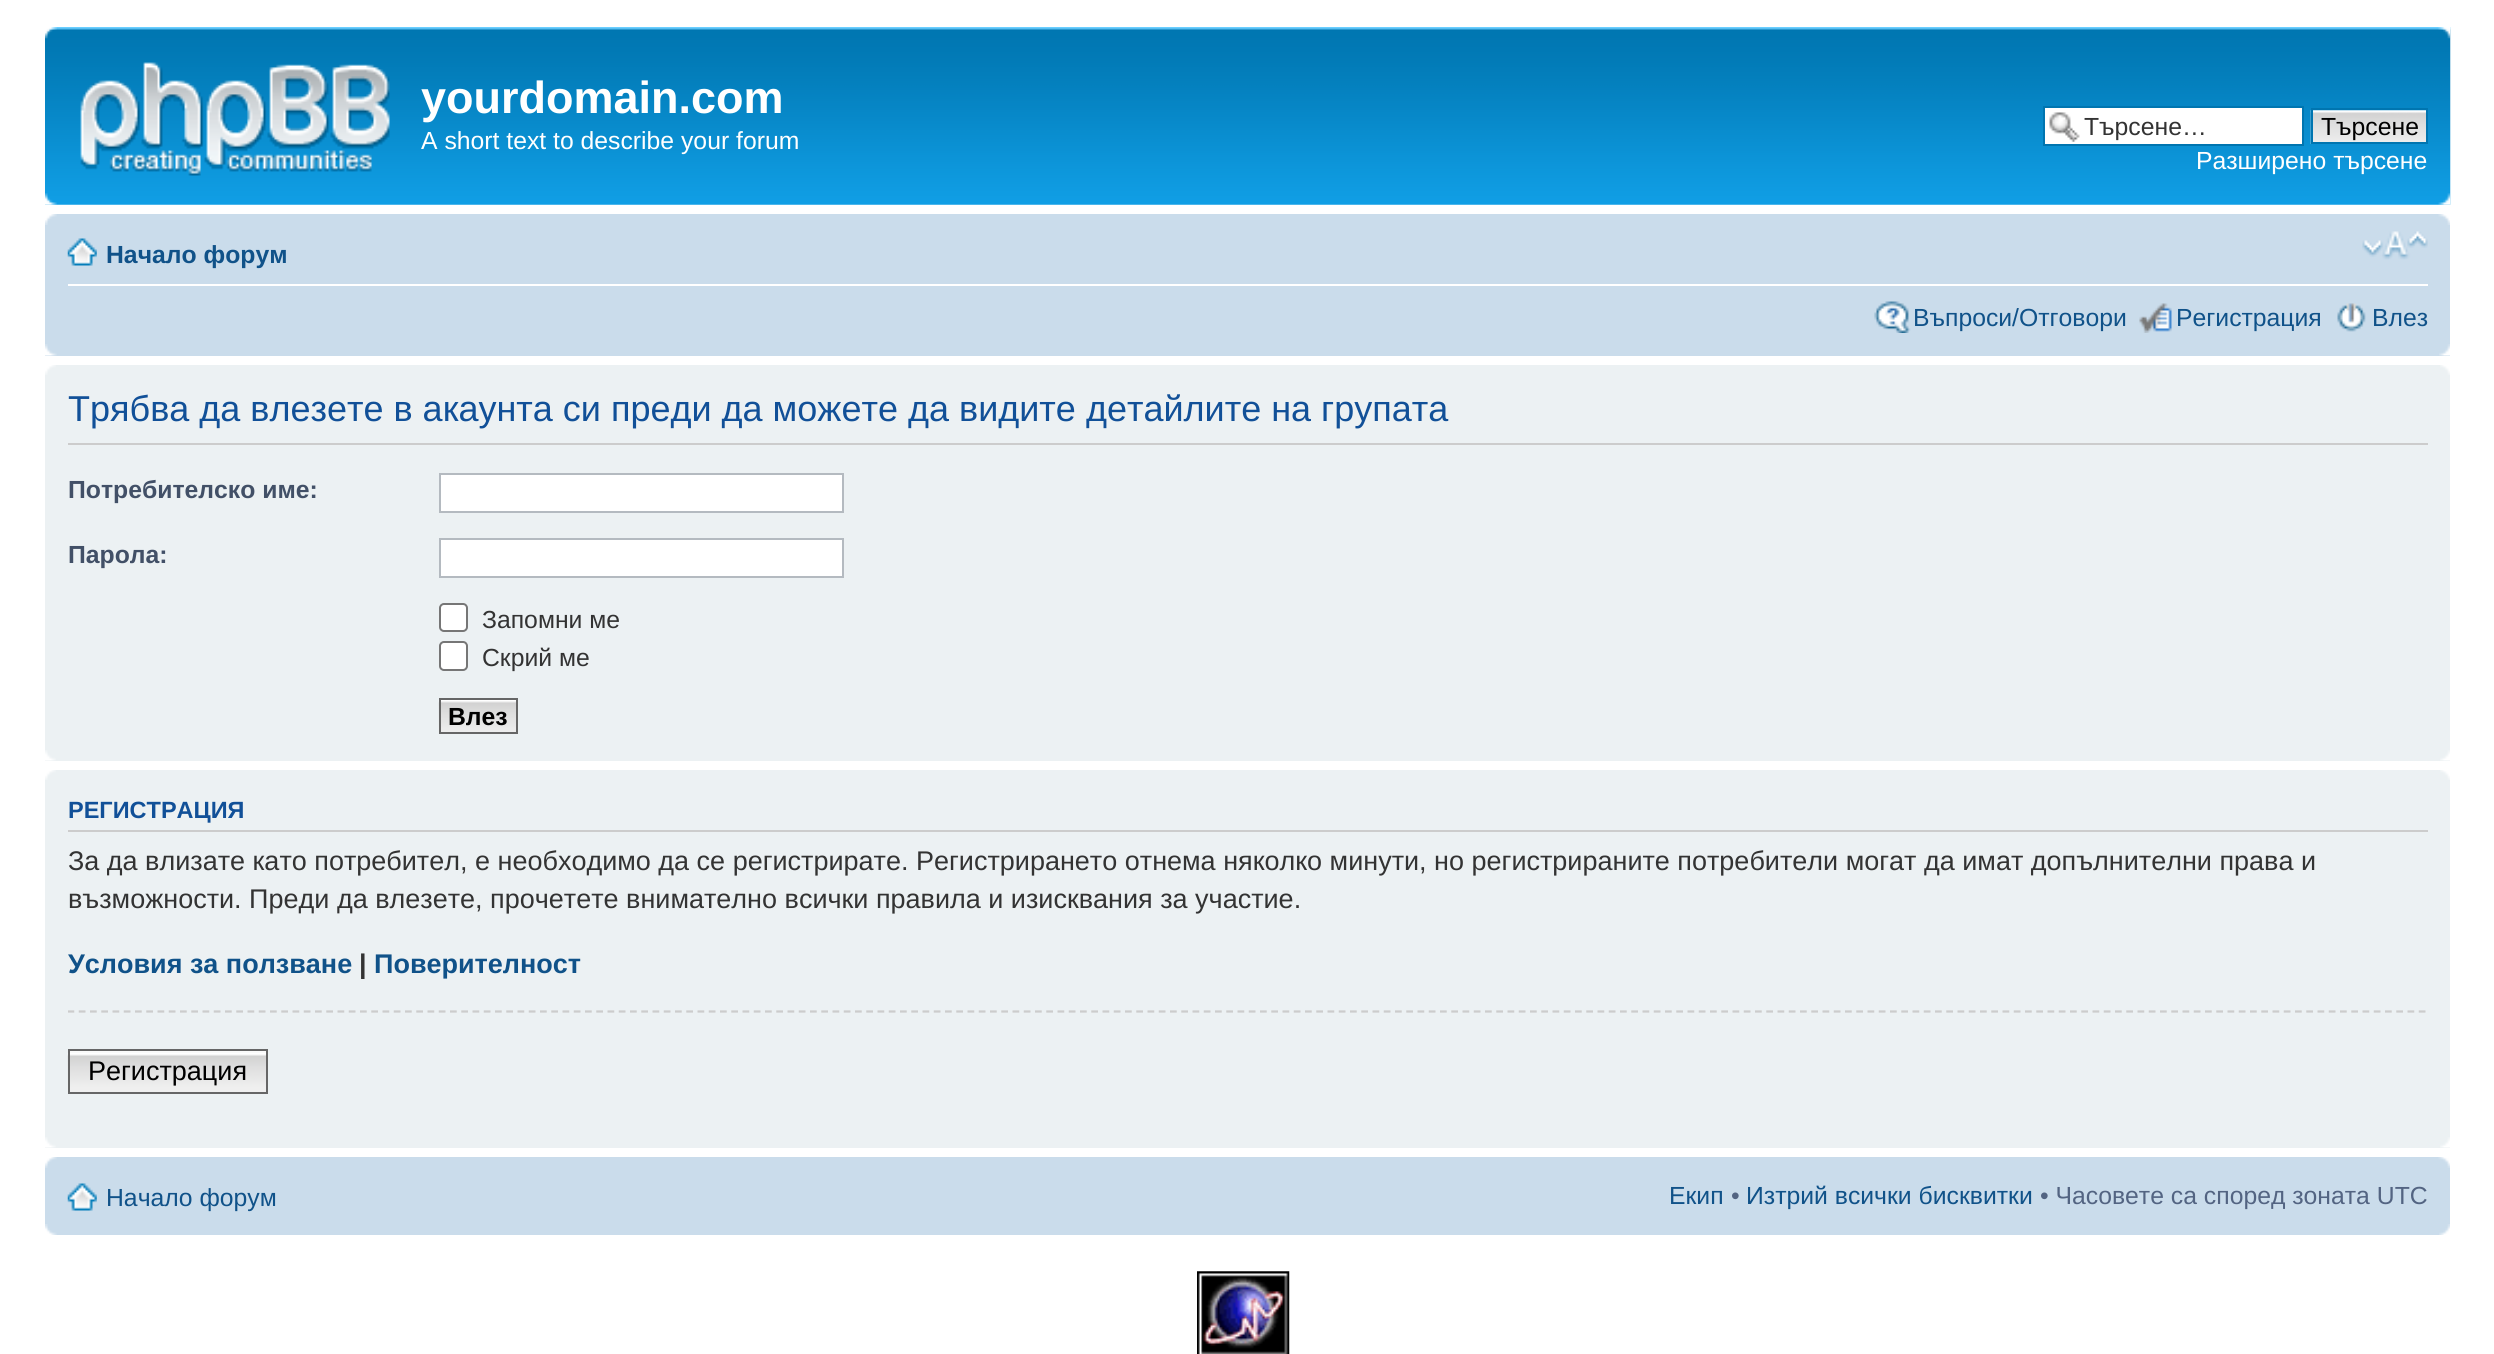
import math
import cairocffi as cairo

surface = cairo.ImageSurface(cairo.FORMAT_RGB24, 2494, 1354)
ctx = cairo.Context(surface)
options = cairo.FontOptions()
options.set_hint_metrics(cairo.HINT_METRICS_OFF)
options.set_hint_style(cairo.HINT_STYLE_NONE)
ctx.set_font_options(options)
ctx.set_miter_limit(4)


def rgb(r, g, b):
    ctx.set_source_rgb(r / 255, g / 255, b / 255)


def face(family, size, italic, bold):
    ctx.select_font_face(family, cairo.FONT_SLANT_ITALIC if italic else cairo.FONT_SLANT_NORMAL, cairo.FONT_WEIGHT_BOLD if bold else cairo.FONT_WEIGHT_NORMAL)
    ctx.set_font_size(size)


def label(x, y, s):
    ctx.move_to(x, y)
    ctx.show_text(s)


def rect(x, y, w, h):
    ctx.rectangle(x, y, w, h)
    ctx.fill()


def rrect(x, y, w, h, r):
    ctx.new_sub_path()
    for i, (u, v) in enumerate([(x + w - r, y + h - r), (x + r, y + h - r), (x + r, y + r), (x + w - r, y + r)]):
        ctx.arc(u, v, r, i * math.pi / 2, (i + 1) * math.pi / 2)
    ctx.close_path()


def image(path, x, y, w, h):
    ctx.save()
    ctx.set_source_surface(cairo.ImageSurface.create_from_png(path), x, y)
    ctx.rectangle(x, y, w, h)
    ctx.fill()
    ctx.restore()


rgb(255, 255, 255)
ctx.paint()
image('image0.png', 45, 27, 2406, 178)
image('image1.png', 45, 27, 12, 12)
image('image2.png', 2438, 27, 13, 12)
image('image3.png', 80, 62, 310, 114)
face('Liberation Sans', 45, 0, 1)
rgb(255, 255, 255)
label(421, 113, 'yourdomain.com')
face('Liberation Sans', 24.75, 0, 0)
label(421, 149, 'A short text to describe your forum')
rect(2045, 108, 257, 36)
image('image4.png', 2049, 112, 31, 30)
ctx.rectangle(2044, 107, 259, 38)
rgb(0, 117, 176)
ctx.stroke()
rgb(51, 51, 51)
label(2084, 135, 'Търсене…')
image('image5.png', 2310, 110, 116, 34)
ctx.rectangle(2312, 109, 115, 34)
rgb(0, 117, 176)
ctx.stroke()
rgb(0, 0, 0)
label(2321, 135, 'Търсене')
rgb(255, 255, 255)
label(2196, 169, 'Разширено търсене')
image('image6.png', 45, 193, 12, 12)
image('image7.png', 2438, 193, 13, 12)
rgb(202, 220, 235)
rect(45, 214, 2405, 142)
image('image8.png', 45, 214, 12, 11)
image('image9.png', 2438, 214, 12, 11)
rgb(255, 255, 255)
rect(68, 284, 2360, 2)
image('image10.png', 67, 238, 30, 28)
face('Liberation Sans', 24.75, 0, 1)
rgb(16, 82, 137)
label(106, 263, 'Начало форум')
image('image11.png', 2362, 231, 66, 29)
image('image12.png', 1874, 301, 37, 32)
face('Liberation Sans', 24.75, 0, 0)
label(1913, 326, 'Въпроси/Отговори')
image('image13.png', 2139, 303, 33, 30)
label(2176, 326, 'Регистрация')
image('image14.png', 2337, 303, 29, 29)
label(2372, 326, 'Влез')
image('image15.png', 45, 344, 12, 12)
image('image16.png', 2439, 344, 11, 12)
rgb(236, 241, 243)
rect(45, 365, 2405, 396)
image('image17.png', 45, 365, 11, 10)
image('image18.png', 2440, 365, 10, 10)
rgb(204, 204, 204)
rect(68, 443, 2360, 2)
face('Liberation Sans', 36, 0, 0)
rgb(17, 80, 152)
label(68, 421, 'Трябва да влезете в акаунта си преди да можете да видите детайлите на групата')
face('Liberation Sans', 24.75, 0, 1)
rgb(66, 80, 103)
label(68, 498, 'Потребителско име:')
rgb(255, 255, 255)
ctx.rectangle(440, 474, 403, 38)
ctx.fill_preserve()
rgb(180, 186, 192)
ctx.stroke()
rgb(66, 80, 103)
label(68, 563, 'Парола:')
rgb(255, 255, 255)
ctx.rectangle(440, 539, 403, 38)
ctx.fill_preserve()
rgb(180, 186, 192)
ctx.stroke()
rgb(255, 255, 255)
rrect(440, 604, 27, 27, 4)
ctx.fill_preserve()
rgb(118, 118, 118)
ctx.stroke()
face('Liberation Sans', 24.75, 0, 0)
rgb(51, 51, 51)
label(482, 628, 'Запомни ме')
rgb(255, 255, 255)
rrect(440, 642, 27, 28, 4)
ctx.fill_preserve()
rgb(118, 118, 118)
ctx.stroke()
rgb(51, 51, 51)
label(482, 666, 'Скрий ме')
image('image19.png', 438, 700, 78, 34)
ctx.rectangle(440, 699, 77, 34)
rgb(102, 102, 102)
ctx.stroke()
face('Liberation Sans', 24.75, 0, 1)
rgb(0, 0, 0)
label(448, 725, 'Влез')
image('image20.png', 45, 750, 11, 11)
image('image21.png', 2440, 750, 10, 11)
rgb(236, 241, 243)
rect(45, 770, 2405, 378)
image('image17.png', 45, 770, 11, 10)
image('image18.png', 2440, 770, 10, 10)
rgb(204, 204, 204)
rect(68, 830, 2360, 2)
face('Liberation Sans', 23.5, 0, 1)
rgb(17, 80, 152)
label(68, 818, 'РЕГИСТРАЦИЯ')
face('Liberation Sans', 27, 0, 0)
rgb(51, 51, 51)
label(68, 870, 'За да влизате като потребител, е необходимо да се регистрирате. Регистрирането отнема няколко минути, но регистрираните потребители могат да имат допълнителни права и')
label(68, 908, 'възможности. Преди да влезете, прочетете внимателно всички правила и изисквания за участие.')
face('Liberation Sans', 27, 0, 1)
rgb(16, 82, 137)
label(68, 973, 'Условия за ползване')
rgb(51, 51, 51)
label(359, 973, '|')
rgb(16, 82, 137)
label(374, 973, 'Поверителност')
ctx.save()
ctx.rectangle(68, 781, 2360, 355)
ctx.clip()
ctx.new_path()
ctx.move_to(67.5, 1011.5)
ctx.line_to(2428, 1011.5)
rgb(204, 204, 204)
ctx.set_line_width(2.2)
ctx.set_dash([6.75, 4.5])
ctx.stroke()
ctx.restore()
image('image22.png', 67, 1053, 199, 41)
rgb(250, 250, 250)
rect(70, 1051, 196, 2)
ctx.rectangle(69, 1050, 198, 43)
rgb(102, 102, 102)
ctx.stroke()
face('Liberation Sans', 27, 0, 0)
rgb(0, 0, 0)
label(88, 1080, 'Регистрация')
image('image20.png', 45, 1137, 11, 11)
image('image21.png', 2440, 1137, 10, 11)
rgb(202, 220, 235)
rect(45, 1157, 2405, 78)
image('image23.png', 45, 1157, 12, 11)
image('image24.png', 2438, 1157, 12, 11)
image('image10.png', 67, 1183, 30, 28)
face('Liberation Sans', 24.75, 0, 0)
rgb(16, 82, 137)
label(106, 1206, 'Начало форум')
label(1669, 1204, 'Екип')
rgb(83, 100, 130)
label(1731, 1204, '•')
rgb(16, 82, 137)
label(1746, 1204, 'Изтрий всички бисквитки')
rgb(83, 100, 130)
label(2040, 1204, '• Часовете са според зоната UTC')
image('image25.png', 45, 1224, 12, 11)
image('image26.png', 2439, 1224, 11, 11)
image('image27.png', 1197, 1271, 93, 83)
surface.write_to_png('render.png')
